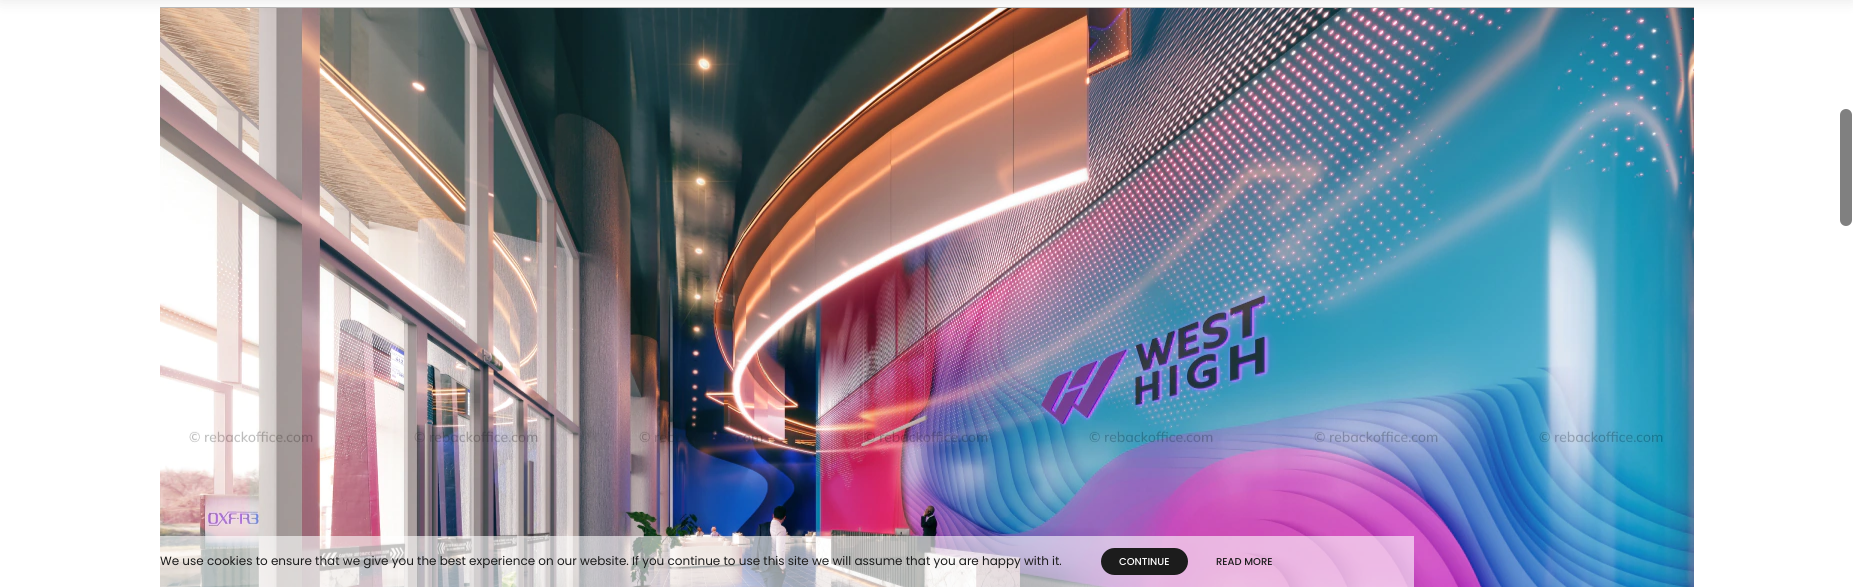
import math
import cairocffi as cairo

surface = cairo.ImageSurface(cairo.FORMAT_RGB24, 1853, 587)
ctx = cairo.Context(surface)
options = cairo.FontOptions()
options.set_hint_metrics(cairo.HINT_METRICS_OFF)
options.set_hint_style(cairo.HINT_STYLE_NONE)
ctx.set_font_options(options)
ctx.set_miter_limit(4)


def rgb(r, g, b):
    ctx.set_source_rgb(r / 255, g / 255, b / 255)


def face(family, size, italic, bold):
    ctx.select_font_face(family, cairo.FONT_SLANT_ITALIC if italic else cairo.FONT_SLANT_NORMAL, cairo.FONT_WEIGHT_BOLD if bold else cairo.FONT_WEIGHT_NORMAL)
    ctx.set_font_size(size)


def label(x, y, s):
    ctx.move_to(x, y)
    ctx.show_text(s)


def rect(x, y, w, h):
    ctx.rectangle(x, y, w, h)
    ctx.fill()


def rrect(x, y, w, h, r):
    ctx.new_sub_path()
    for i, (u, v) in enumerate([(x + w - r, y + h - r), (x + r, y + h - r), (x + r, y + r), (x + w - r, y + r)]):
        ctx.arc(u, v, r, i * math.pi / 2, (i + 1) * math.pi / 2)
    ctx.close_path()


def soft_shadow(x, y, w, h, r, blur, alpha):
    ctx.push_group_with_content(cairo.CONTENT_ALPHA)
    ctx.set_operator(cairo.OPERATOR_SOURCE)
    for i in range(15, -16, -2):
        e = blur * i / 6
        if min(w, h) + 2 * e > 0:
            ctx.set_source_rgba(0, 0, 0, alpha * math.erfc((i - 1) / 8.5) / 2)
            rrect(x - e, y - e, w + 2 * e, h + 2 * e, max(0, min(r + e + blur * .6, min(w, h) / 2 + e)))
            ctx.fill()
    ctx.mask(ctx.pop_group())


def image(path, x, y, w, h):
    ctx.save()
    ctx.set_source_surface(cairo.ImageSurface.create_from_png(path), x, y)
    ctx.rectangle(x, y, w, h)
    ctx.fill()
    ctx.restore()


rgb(255, 255, 255)
ctx.paint()
rgb(187, 187, 187)
rect(160, 7, 1534, 1)
image('image0.png', 160, 8, 1534, 579)
rgb(0, 0, 0)
soft_shadow(0, -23, 1853, 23, 0, 7.5, 0.1)
rgb(128, 128, 128)
rrect(1840, 109, 12, 117, 6)
ctx.fill()
ctx.set_source_rgba(1, 1, 1, 0.59)
rect(160, 536, 1254, 51)
face('Poppins', 12, 0, 0)
rgb(28, 28, 28)
label(160, 565, 'We use cookies to ensure that we give you the best experience on our website. If you continue to use this site we will assume that you are happy with it.')
rrect(1101, 548, 87, 27, 13.5)
ctx.fill()
face('Poppins Medium', 10, 0, 0)
rgb(255, 255, 255)
label(1119, 565, 'CONTINUE')
rgb(28, 28, 28)
label(1216, 565, 'READ MORE')
surface.write_to_png('render.png')
